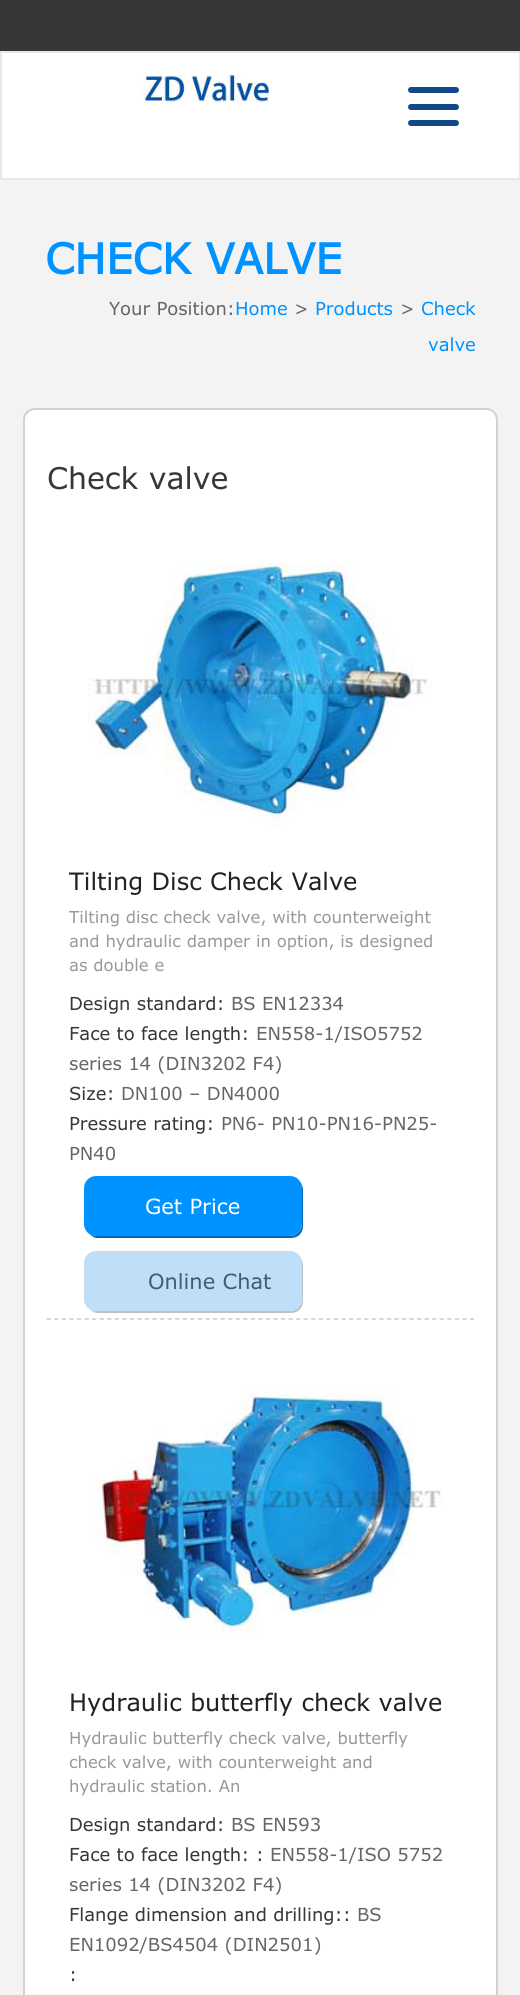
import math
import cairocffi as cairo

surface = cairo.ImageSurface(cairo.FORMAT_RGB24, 520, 1995)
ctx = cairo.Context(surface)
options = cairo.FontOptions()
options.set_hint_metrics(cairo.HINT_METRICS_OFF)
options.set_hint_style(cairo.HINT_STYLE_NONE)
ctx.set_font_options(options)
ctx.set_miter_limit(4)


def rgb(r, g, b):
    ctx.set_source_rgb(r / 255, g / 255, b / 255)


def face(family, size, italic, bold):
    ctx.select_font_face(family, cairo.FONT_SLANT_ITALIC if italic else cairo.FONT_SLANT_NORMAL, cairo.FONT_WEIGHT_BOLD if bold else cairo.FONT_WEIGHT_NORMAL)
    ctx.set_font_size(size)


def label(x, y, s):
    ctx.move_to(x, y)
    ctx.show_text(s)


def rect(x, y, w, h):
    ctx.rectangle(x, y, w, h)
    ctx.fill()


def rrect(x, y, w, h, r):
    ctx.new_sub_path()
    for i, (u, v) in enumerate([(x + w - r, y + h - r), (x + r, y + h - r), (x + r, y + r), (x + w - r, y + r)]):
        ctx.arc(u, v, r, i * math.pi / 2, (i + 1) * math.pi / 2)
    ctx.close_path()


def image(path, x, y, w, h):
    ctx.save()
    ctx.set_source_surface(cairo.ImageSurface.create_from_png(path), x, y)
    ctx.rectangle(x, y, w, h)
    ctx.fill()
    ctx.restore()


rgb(255, 255, 255)
ctx.paint()
rgb(55, 55, 55)
rect(0, 0, 520, 51)
ctx.rectangle(1, 52, 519, 127)
rgb(231, 231, 231)
ctx.stroke()
image('image0.png', 142, 74, 127, 28)
rgb(18, 72, 138)
rrect(408, 87, 51, 6, 3)
ctx.fill()
rrect(408, 104, 51, 6, 3)
ctx.fill()
rrect(408, 120, 51, 6, 3)
ctx.fill()
rgb(243, 243, 243)
rect(0, 180, 520, 1815)
face('Verdana', 42, 0, 1)
rgb(0, 147, 255)
label(45, 274, 'CHECK VALVE')
face('Verdana', 18, 0, 0)
rgb(102, 102, 102)
label(109, 315, 'Your Position:')
rgb(0, 147, 255)
label(235, 315, 'Home')
rgb(102, 102, 102)
label(294, 315, '>')
rgb(0, 147, 255)
label(315, 315, 'Products')
rgb(102, 102, 102)
label(400, 315, '>')
rgb(0, 147, 255)
label(421, 315, 'Check')
label(428, 351, 'valve')
rgb(255, 255, 255)
rrect(24, 409, 473, 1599, 11)
ctx.fill_preserve()
rgb(210, 210, 210)
ctx.stroke()
face('Verdana', 30, 0, 0)
rgb(55, 55, 55)
label(47, 489, 'Check valve')
ctx.new_path()
ctx.move_to(46.5, 1319)
ctx.line_to(474, 1319)
rgb(204, 204, 204)
ctx.set_line_width(1.5)
ctx.set_dash([4.5, 3.06])
ctx.stroke()
image('image1.png', 88, 563, 344, 265)
face('Verdana', 24, 0, 0)
rgb(34, 34, 34)
label(69, 890, 'Tilting Disc Check Valve')
face('Verdana', 16.5, 0, 0)
rgb(153, 153, 153)
label(69, 923, 'Tilting disc check valve, with counterweight')
label(69, 947, 'and hydraulic damper in option, is designed')
label(69, 971, 'as double e')
face('Verdana', 18, 0, 0)
rgb(55, 55, 55)
label(69, 1010, 'Design standard:')
rgb(102, 102, 102)
label(231, 1010, 'BS EN12334')
rgb(55, 55, 55)
label(69, 1040, 'Face to face length:')
rgb(102, 102, 102)
label(256, 1040, 'EN558-1/ISO5752')
label(69, 1070, 'series 14 (DIN3202 F4)')
rgb(55, 55, 55)
label(69, 1100, 'Size:')
rgb(102, 102, 102)
label(121, 1100, 'DN100 – DN4000')
rgb(55, 55, 55)
label(69, 1130, 'Pressure rating:')
rgb(102, 102, 102)
label(221, 1130, 'PN6- PN10-PN16-PN25-')
label(69, 1160, 'PN40')
rgb(0, 104, 180)
ctx.new_path()
ctx.move_to(89, 1233)
ctx.curve_to(91, 1236, 94, 1238, 98, 1238)
ctx.line_to(291, 1238)
ctx.curve_to(298, 1238, 303, 1233, 303, 1226)
ctx.line_to(303, 1190)
ctx.curve_to(303, 1187, 302, 1184, 300, 1182)
ctx.curve_to(301, 1184, 302, 1186, 302, 1188)
ctx.line_to(302, 1224)
ctx.curve_to(302, 1231, 296, 1236, 290, 1236)
ctx.line_to(96, 1236)
ctx.curve_to(93, 1236, 91, 1235, 89, 1233)
ctx.close_path()
ctx.fill()
rgb(0, 147, 255)
rrect(84, 1176, 218, 60, 12)
ctx.fill()
face('Verdana', 21, 0, 0)
rgb(255, 255, 255)
label(145, 1214, 'Get Price')
rgb(190, 194, 197)
ctx.new_path()
ctx.move_to(89, 1308)
ctx.curve_to(91, 1311, 94, 1313, 98, 1313)
ctx.line_to(291, 1313)
ctx.curve_to(298, 1313, 303, 1308, 303, 1301)
ctx.line_to(303, 1265)
ctx.curve_to(303, 1262, 302, 1259, 300, 1257)
ctx.curve_to(301, 1259, 302, 1261, 302, 1263)
ctx.line_to(302, 1299)
ctx.curve_to(302, 1306, 296, 1311, 290, 1311)
ctx.line_to(96, 1311)
ctx.curve_to(93, 1311, 91, 1310, 89, 1308)
ctx.close_path()
ctx.fill()
rgb(190, 223, 247)
rrect(84, 1251, 218, 60, 12)
ctx.fill()
rgb(69, 93, 110)
label(148, 1289, 'Online Chat')
image('image2.png', 95, 1384, 347, 249)
face('Verdana', 24, 0, 0)
rgb(34, 34, 34)
label(69, 1711, 'Hydraulic butterfly check valve')
face('Verdana', 16.5, 0, 0)
rgb(153, 153, 153)
label(69, 1744, 'Hydraulic butterfly check valve, butterfly')
label(69, 1768, 'check valve, with counterweight and')
label(69, 1792, 'hydraulic station. An')
face('Verdana', 18, 0, 0)
rgb(55, 55, 55)
label(69, 1831, 'Design standard:')
rgb(102, 102, 102)
label(231, 1831, 'BS EN593')
rgb(55, 55, 55)
label(69, 1861, 'Face to face length: :')
rgb(102, 102, 102)
label(270, 1861, 'EN558-1/ISO 5752')
label(69, 1891, 'series 14 (DIN3202 F4)')
rgb(55, 55, 55)
label(69, 1921, 'Flange dimension and drilling::')
rgb(102, 102, 102)
label(357, 1921, 'BS')
label(69, 1951, 'EN1092/BS4504 (DIN2501)')
rgb(55, 55, 55)
label(69, 1981, ':')
surface.write_to_png('render.png')
